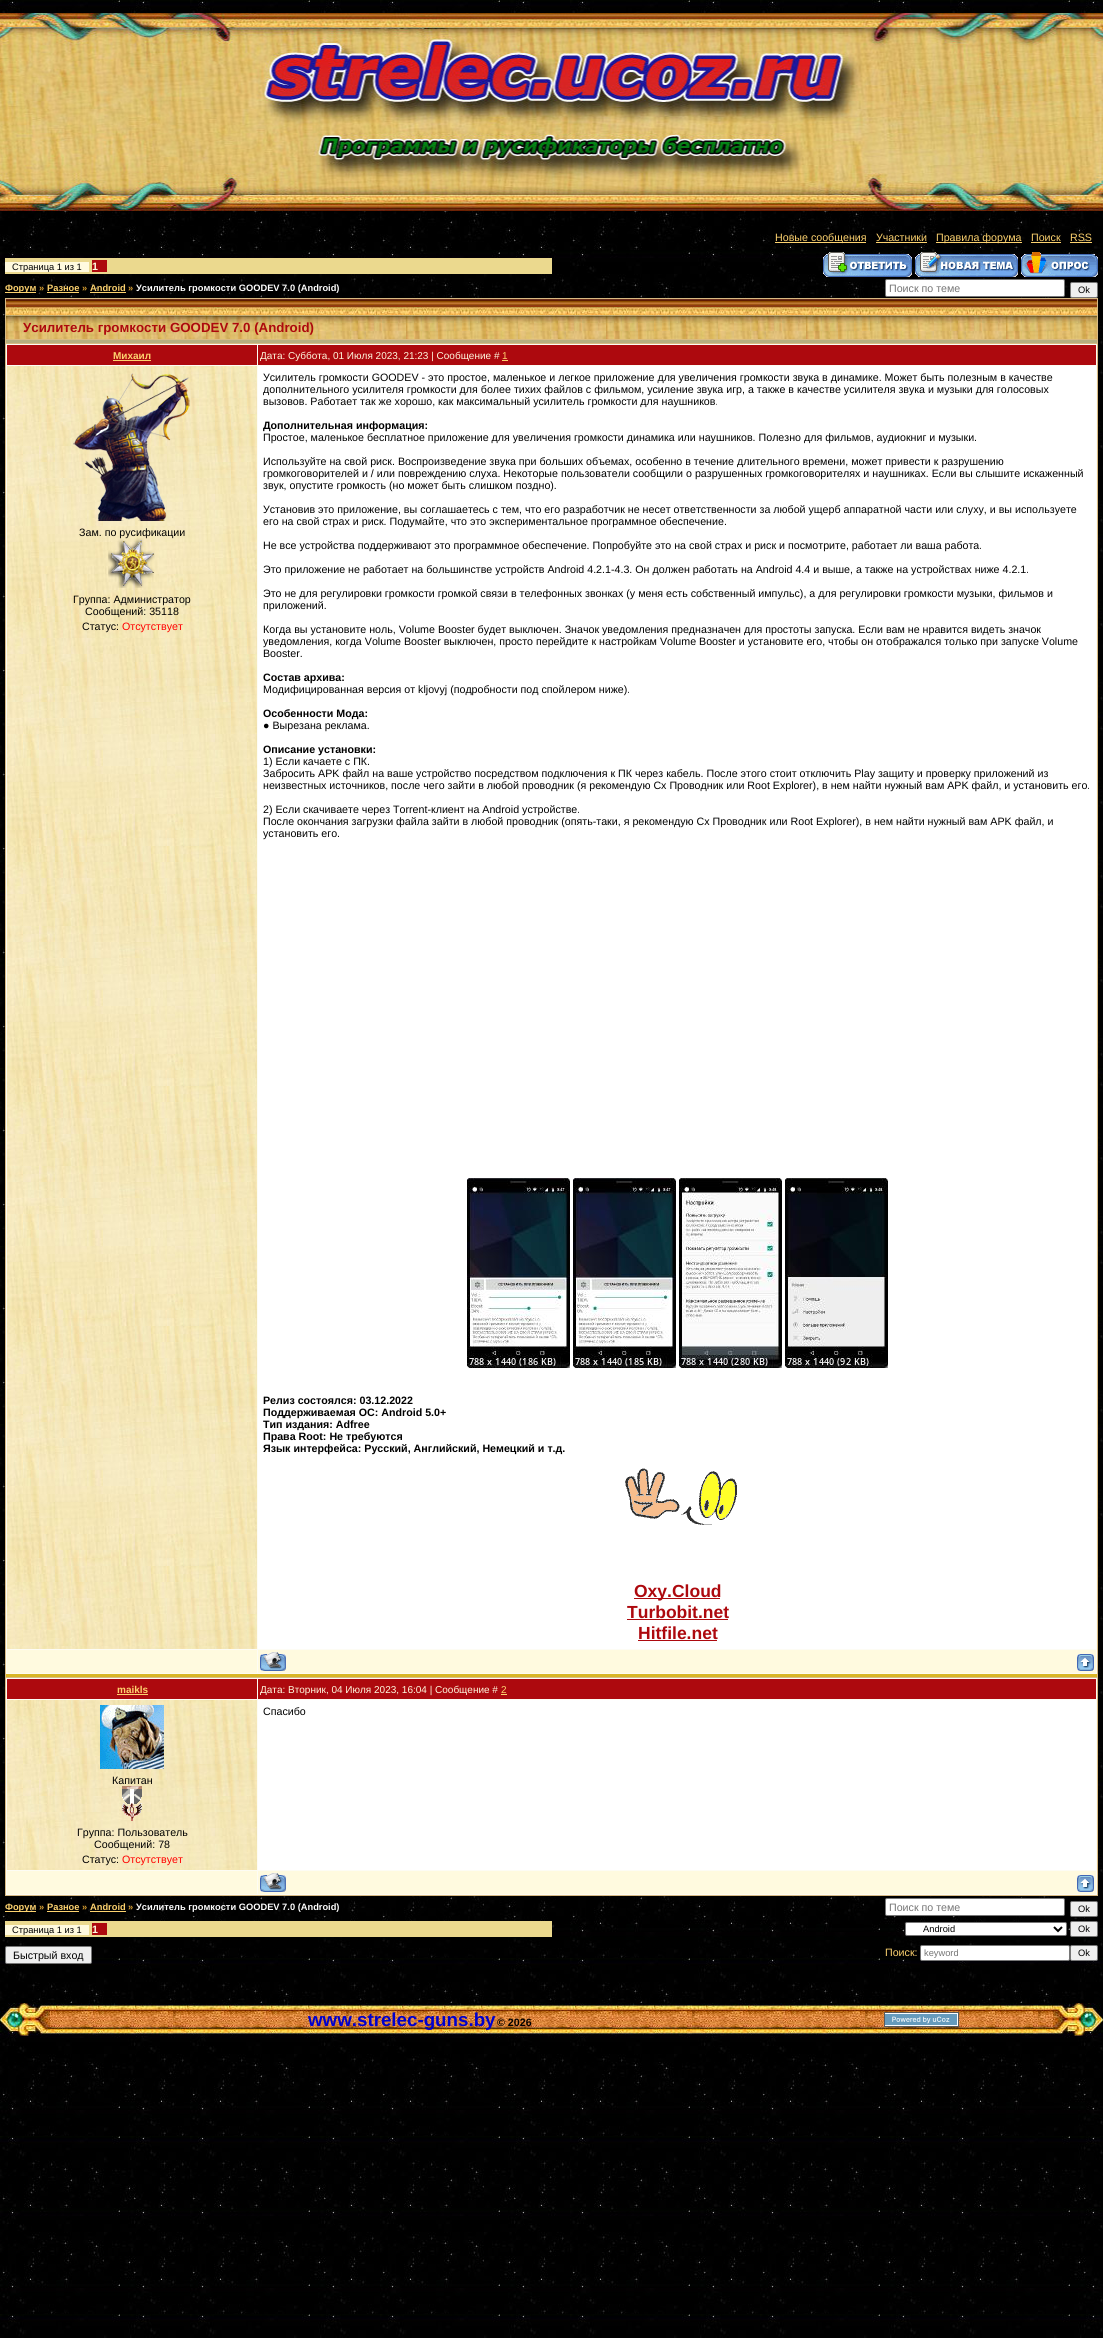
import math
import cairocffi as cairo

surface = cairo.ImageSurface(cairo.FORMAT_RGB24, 1103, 2338)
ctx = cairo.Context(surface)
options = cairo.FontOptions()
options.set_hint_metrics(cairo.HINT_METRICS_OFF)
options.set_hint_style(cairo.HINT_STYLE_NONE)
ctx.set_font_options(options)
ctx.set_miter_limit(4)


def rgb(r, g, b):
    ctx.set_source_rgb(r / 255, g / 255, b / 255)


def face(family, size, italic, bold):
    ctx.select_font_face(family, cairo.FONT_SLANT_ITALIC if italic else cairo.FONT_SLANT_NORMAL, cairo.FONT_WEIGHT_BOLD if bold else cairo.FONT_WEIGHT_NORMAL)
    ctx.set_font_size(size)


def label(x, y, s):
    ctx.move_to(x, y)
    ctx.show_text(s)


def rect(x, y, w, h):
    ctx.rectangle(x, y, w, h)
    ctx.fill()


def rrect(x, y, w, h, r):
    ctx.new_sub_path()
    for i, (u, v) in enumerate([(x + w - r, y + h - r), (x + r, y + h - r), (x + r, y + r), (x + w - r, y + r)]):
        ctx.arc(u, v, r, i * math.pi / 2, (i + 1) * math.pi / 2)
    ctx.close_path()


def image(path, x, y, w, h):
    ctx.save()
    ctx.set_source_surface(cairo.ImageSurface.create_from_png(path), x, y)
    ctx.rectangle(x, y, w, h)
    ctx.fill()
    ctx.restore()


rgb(255, 255, 255)
ctx.paint()
image('image0.png', 0, 0, 1103, 2338)
image('image1.png', 0, 13, 1103, 198)
rgb(254, 211, 111)
rect(775, 242, 91, 1)
face('Liberation Sans', 10.67, 0, 0)
label(775, 241, 'Новые сообщения')
label(876, 241, 'Участники')
rect(876, 242, 51, 1)
rect(936, 242, 86, 1)
label(936, 241, 'Правила форума')
label(1031, 241, 'Поиск')
rect(1031, 242, 30, 1)
label(1070, 241, 'RSS')
rect(1070, 242, 22, 1)
rgb(235, 217, 142)
rect(5, 258, 547, 16)
rgb(255, 250, 223)
rect(5, 262, 84, 10)
face('Liberation Sans', 9.3, 0, 0)
rgb(0, 0, 0)
label(12, 270, 'Страница 1 из 1')
rgb(173, 9, 14)
rect(92, 260, 15, 12)
face('Liberation Sans', 10.67, 0, 1)
rgb(255, 250, 223)
label(92, 270, '1')
image('image2.png', 823, 252, 89, 25)
image('image3.png', 915, 252, 103, 25)
image('image4.png', 1021, 252, 77, 25)
rgb(254, 211, 111)
rect(5, 292, 31, 1)
face('Liberation Sans', 9.3, 0, 1)
label(5, 291, 'Форум')
rgb(214, 157, 48)
label(39, 291, '»')
rgb(254, 211, 111)
label(47, 291, 'Разное')
rect(47, 292, 32, 1)
rgb(214, 157, 48)
label(82, 291, '»')
rgb(254, 211, 111)
label(90, 291, 'Android')
rect(90, 292, 36, 1)
rgb(214, 157, 48)
label(128, 291, '»')
rgb(255, 255, 255)
label(136, 291, 'Усилитель громкости GOODEV 7.0 (Android)')
rrect(885.5, 279.5, 179, 17, 1.5)
ctx.fill_preserve()
rgb(118, 118, 118)
ctx.set_line_width(1)
ctx.stroke()
face('Liberation Sans', 10.67, 0, 0)
rgb(117, 117, 117)
label(889, 292, 'Поиск по теме')
rgb(239, 239, 239)
rrect(1070.5, 282.5, 27, 15, 1.5)
ctx.fill_preserve()
rgb(118, 118, 118)
ctx.stroke()
face('Liberation Sans', 9.3, 0, 0)
rgb(0, 0, 0)
label(1078, 293, 'Ok')
rgb(216, 186, 131)
rect(5, 298, 1093, 1598)
image('image5.png', 6, 299, 1091, 40)
face('Liberation Sans', 13.3, 0, 1)
rgb(173, 9, 14)
label(23, 332, 'Усилитель громкости GOODEV 7.0 (Android)')
rgb(181, 175, 128)
rect(6, 340, 1091, 3)
rgb(253, 252, 244)
rect(6, 344, 1091, 1330)
rgb(217, 182, 39)
rect(6, 1674, 1091, 3)
rgb(173, 9, 14)
rect(7, 345, 250, 20)
face('Liberation Sans', 10, 0, 1)
rgb(254, 211, 111)
label(113, 359, 'Михаил')
rect(113, 360, 38, 1)
rgb(173, 9, 14)
rect(258, 345, 838, 20)
face('Liberation Sans', 10, 0, 0)
rgb(255, 250, 223)
label(260, 359, 'Дата: Суббота, 01 Июля 2023, 21:23 | Сообщение #')
rgb(254, 211, 111)
label(502, 359, '1')
rect(502, 360, 6, 1)
image('image6.png', 7, 366, 250, 1283)
image('image7.png', 73, 373, 117, 148)
face('Liberation Sans', 10.67, 0, 0)
rgb(0, 0, 0)
label(79, 536, 'Зам. по русификации')
image('image8.png', 108, 538, 47, 50)
label(73, 603, 'Группа: Администратор')
label(85, 615, 'Сообщений: 35118')
label(82, 630, 'Статус:')
rgb(255, 0, 0)
label(122, 630, 'Отсутствует')
rgb(255, 255, 255)
rect(258, 366, 838, 1283)
rgb(0, 0, 0)
label(263, 381, 'Усилитель громкости GOODEV - это простое, маленькое и легкое приложение для увеличения громкости звука в динамике. Может быть полезным в качестве')
label(263, 393, 'дополнительного усилителя громкости для более тихих файлов с фильмом, усиление звука игр, а также в качестве усилителя звука и музыки для голосовых')
label(263, 405, 'вызовов. Работает так же хорошо, как максимальный усилитель громкости для наушников.')
face('Liberation Sans', 10.67, 0, 1)
label(263, 429, 'Дополнительная информация:')
face('Liberation Sans', 10.67, 0, 0)
label(263, 441, 'Простое, маленькое бесплатное приложение для увеличения громкости динамика или наушников. Полезно для фильмов, аудиокниг и музыки.')
label(263, 465, 'Используйте на свой риск. Воспроизведение звука при больших объемах, особенно в течение длительного времени, может привести к разрушению')
label(263, 477, 'громкоговорителей и / или повреждению слуха. Некоторые пользователи сообщили о разрушенных громкоговорителях и наушниках. Если вы слышите искаженный')
label(263, 489, 'звук, опустите громкость (но может быть слишком поздно).')
label(263, 513, 'Установив это приложение, вы соглашаетесь с тем, что его разработчик не несет ответственности за любой ущерб аппаратной части или слуху, и вы используете')
label(263, 525, 'его на свой страх и риск. Подумайте, что это экспериментальное программное обеспечение.')
label(263, 549, 'Не все устройства поддерживают это программное обеспечение. Попробуйте это на свой страх и риск и посмотрите, работает ли ваша работа.')
label(263, 573, 'Это приложение не работает на большинстве устройств Android 4.2.1-4.3. Он должен работать на Android 4.4 и выше, а также на устройствах ниже 4.2.1.')
label(263, 597, 'Это не для регулировки громкости громкой связи в телефонных звонках (у меня есть собственный импульс), а для регулировки громкости музыки, фильмов и')
label(263, 609, 'приложений.')
label(263, 633, 'Когда вы установите ноль, Volume Booster будет выключен. Значок уведомления предназначен для простоты запуска. Если вам не нравится видеть значок')
label(263, 645, 'уведомления, когда Volume Booster выключен, просто перейдите к настройкам Volume Booster и установите его, чтобы он отображался только при запуске Volume')
label(263, 657, 'Booster.')
face('Liberation Sans', 10.67, 0, 1)
label(263, 681, 'Состав архива:')
face('Liberation Sans', 10.67, 0, 0)
label(263, 693, 'Модифицированная версия от kljovyj (подробности под спойлером ниже).')
face('Liberation Sans', 10.67, 0, 1)
label(263, 717, 'Особенности Мода:')
face('Liberation Sans', 10.67, 0, 0)
label(263, 729, '● Вырезана реклама.')
face('Liberation Sans', 10.67, 0, 1)
label(263, 753, 'Описание установки:')
face('Liberation Sans', 10.67, 0, 0)
label(263, 765, '1) Если качаете с ПК.')
label(263, 777, 'Забросить APK файл на ваше устройство посредством подключения к ПК через кабель. После этого стоит отключить Play защиту и проверку приложений из')
label(263, 789, 'неизвестных источников, после чего зайти в любой проводник (я рекомендую Cx Проводник или Root Explorer), в нем найти нужный вам APK файл, и установить его.')
label(263, 813, '2) Если скачиваете через Torrent-клиент на Android устройстве.')
label(263, 825, 'После окончания загрузки файла зайти в любой проводник (опять-таки, я рекомендую Cx Проводник или Root Explorer), в нем найти нужный вам APK файл, и')
label(263, 837, 'установить его.')
image('image9.png', 467, 1178, 103, 190)
image('image10.png', 573, 1178, 103, 190)
image('image11.png', 679, 1178, 103, 190)
image('image12.png', 785, 1178, 103, 190)
face('Liberation Sans', 10.67, 0, 1)
label(263, 1404, 'Релиз состоялся: 03.12.2022')
label(263, 1416, 'Поддерживаемая ОС: Android 5.0+')
label(263, 1428, 'Тип издания: Adfree')
label(263, 1440, 'Права Root: Не требуются')
label(263, 1452, 'Язык интерфейса: Русский, Английский, Немецкий и т.д.')
image('image13.png', 625, 1468, 112, 57)
rgb(173, 9, 14)
rect(634, 1598, 86, 1)
face('Liberation Sans', 17.5, 0, 1)
label(634, 1597, 'Oxy.Cloud')
label(627, 1618, 'Turbobit.net')
rect(627, 1619, 101, 1)
label(638, 1639, 'Hitfile.net')
rect(638, 1640, 79, 1)
rgb(255, 250, 223)
rect(7, 1650, 250, 23)
rect(258, 1650, 838, 23)
image('image14.png', 260, 1652, 26, 19)
image('image15.png', 1077, 1654, 17, 17)
rgb(253, 252, 244)
rect(6, 1678, 1091, 217)
rgb(173, 9, 14)
rect(7, 1679, 250, 20)
face('Liberation Sans', 10, 0, 1)
rgb(254, 211, 111)
label(117, 1693, 'maikls')
rect(117, 1694, 31, 1)
rgb(173, 9, 14)
rect(258, 1679, 838, 20)
face('Liberation Sans', 10, 0, 0)
rgb(255, 250, 223)
label(260, 1693, 'Дата: Вторник, 04 Июля 2023, 16:04 | Сообщение #')
rgb(254, 211, 111)
label(501, 1693, '2')
rect(501, 1694, 6, 1)
rgb(255, 255, 255)
rect(258, 1700, 838, 170)
face('Liberation Sans', 10.67, 0, 0)
rgb(0, 0, 0)
label(263, 1715, 'Спасибо')
image('image16.png', 7, 1700, 250, 170)
image('image17.png', 100, 1705, 64, 64)
label(112, 1784, 'Капитан')
image('image18.png', 122, 1786, 20, 35)
label(77, 1836, 'Группа: Пользователь')
label(94, 1848, 'Сообщений: 78')
label(82, 1863, 'Статус:')
rgb(255, 0, 0)
label(122, 1863, 'Отсутствует')
rgb(255, 250, 223)
rect(7, 1871, 250, 23)
rect(258, 1871, 838, 23)
image('image14.png', 260, 1873, 26, 19)
image('image15.png', 1077, 1875, 17, 17)
rgb(254, 211, 111)
rect(5, 1911, 31, 1)
face('Liberation Sans', 9.3, 0, 1)
label(5, 1910, 'Форум')
rgb(214, 157, 48)
label(39, 1910, '»')
rgb(254, 211, 111)
label(47, 1910, 'Разное')
rect(47, 1911, 32, 1)
rgb(214, 157, 48)
label(82, 1910, '»')
rgb(254, 211, 111)
label(90, 1910, 'Android')
rect(90, 1911, 36, 1)
rgb(214, 157, 48)
label(128, 1910, '»')
rgb(255, 255, 255)
label(136, 1910, 'Усилитель громкости GOODEV 7.0 (Android)')
rrect(885.5, 1898.5, 179, 17, 1.5)
ctx.fill_preserve()
rgb(118, 118, 118)
ctx.stroke()
face('Liberation Sans', 10.67, 0, 0)
rgb(117, 117, 117)
label(889, 1911, 'Поиск по теме')
rgb(239, 239, 239)
rrect(1070.5, 1901.5, 27, 15, 1.5)
ctx.fill_preserve()
rgb(118, 118, 118)
ctx.stroke()
face('Liberation Sans', 9.3, 0, 0)
rgb(0, 0, 0)
label(1078, 1912, 'Ok')
rgb(235, 217, 142)
rect(5, 1921, 547, 16)
rgb(255, 250, 223)
rect(5, 1925, 84, 10)
rgb(0, 0, 0)
label(12, 1933, 'Страница 1 из 1')
rgb(173, 9, 14)
rect(92, 1923, 15, 12)
face('Liberation Sans', 10.67, 0, 1)
rgb(255, 250, 223)
label(92, 1933, '1')
rgb(255, 255, 255)
rrect(905.5, 1922.5, 161, 13, 1.5)
ctx.fill_preserve()
rgb(118, 118, 118)
ctx.stroke()
ctx.new_path()
ctx.move_to(1054, 1927)
ctx.line_to(1058, 1931)
ctx.line_to(1062, 1927)
rgb(0, 0, 0)
ctx.set_line_width(2)
ctx.stroke()
face('Liberation Sans', 9.3, 0, 0)
label(923, 1932, 'Android')
rgb(239, 239, 239)
rrect(1070.5, 1921.5, 27, 15, 1.5)
ctx.fill_preserve()
rgb(118, 118, 118)
ctx.set_line_width(1)
ctx.stroke()
rgb(0, 0, 0)
label(1078, 1932, 'Ok')
rgb(239, 239, 239)
rrect(5.5, 1946.5, 86, 17, 1.5)
ctx.fill_preserve()
rgb(118, 118, 118)
ctx.stroke()
face('Liberation Sans', 10.67, 0, 0)
rgb(0, 0, 0)
label(13, 1959, 'Быстрый вход')
rgb(254, 211, 111)
label(885, 1956, 'Поиск:')
rgb(255, 255, 255)
rrect(920.5, 1945.5, 149, 15, 1.5)
ctx.fill_preserve()
rgb(118, 118, 118)
ctx.stroke()
face('Liberation Sans', 9.3, 0, 0)
rgb(117, 117, 117)
label(924, 1956, 'keyword')
rgb(239, 239, 239)
rrect(1070.5, 1945.5, 27, 15, 1.5)
ctx.fill_preserve()
rgb(118, 118, 118)
ctx.stroke()
rgb(0, 0, 0)
label(1078, 1956, 'Ok')
image('image19.png', 50, 2003, 1003, 33)
image('image20.png', 0, 2003, 50, 33)
face('Liberation Sans', 18.75, 0, 1)
rgb(0, 0, 205)
label(308, 2026, 'www.strelec-guns.by')
face('Liberation Sans', 10.67, 0, 1)
rgb(0, 0, 0)
label(497, 2026, '© 2026')
image('image21.png', 884, 2012, 75, 15)
image('image22.png', 1053, 2003, 50, 33)
surface.write_to_png('render.png')
